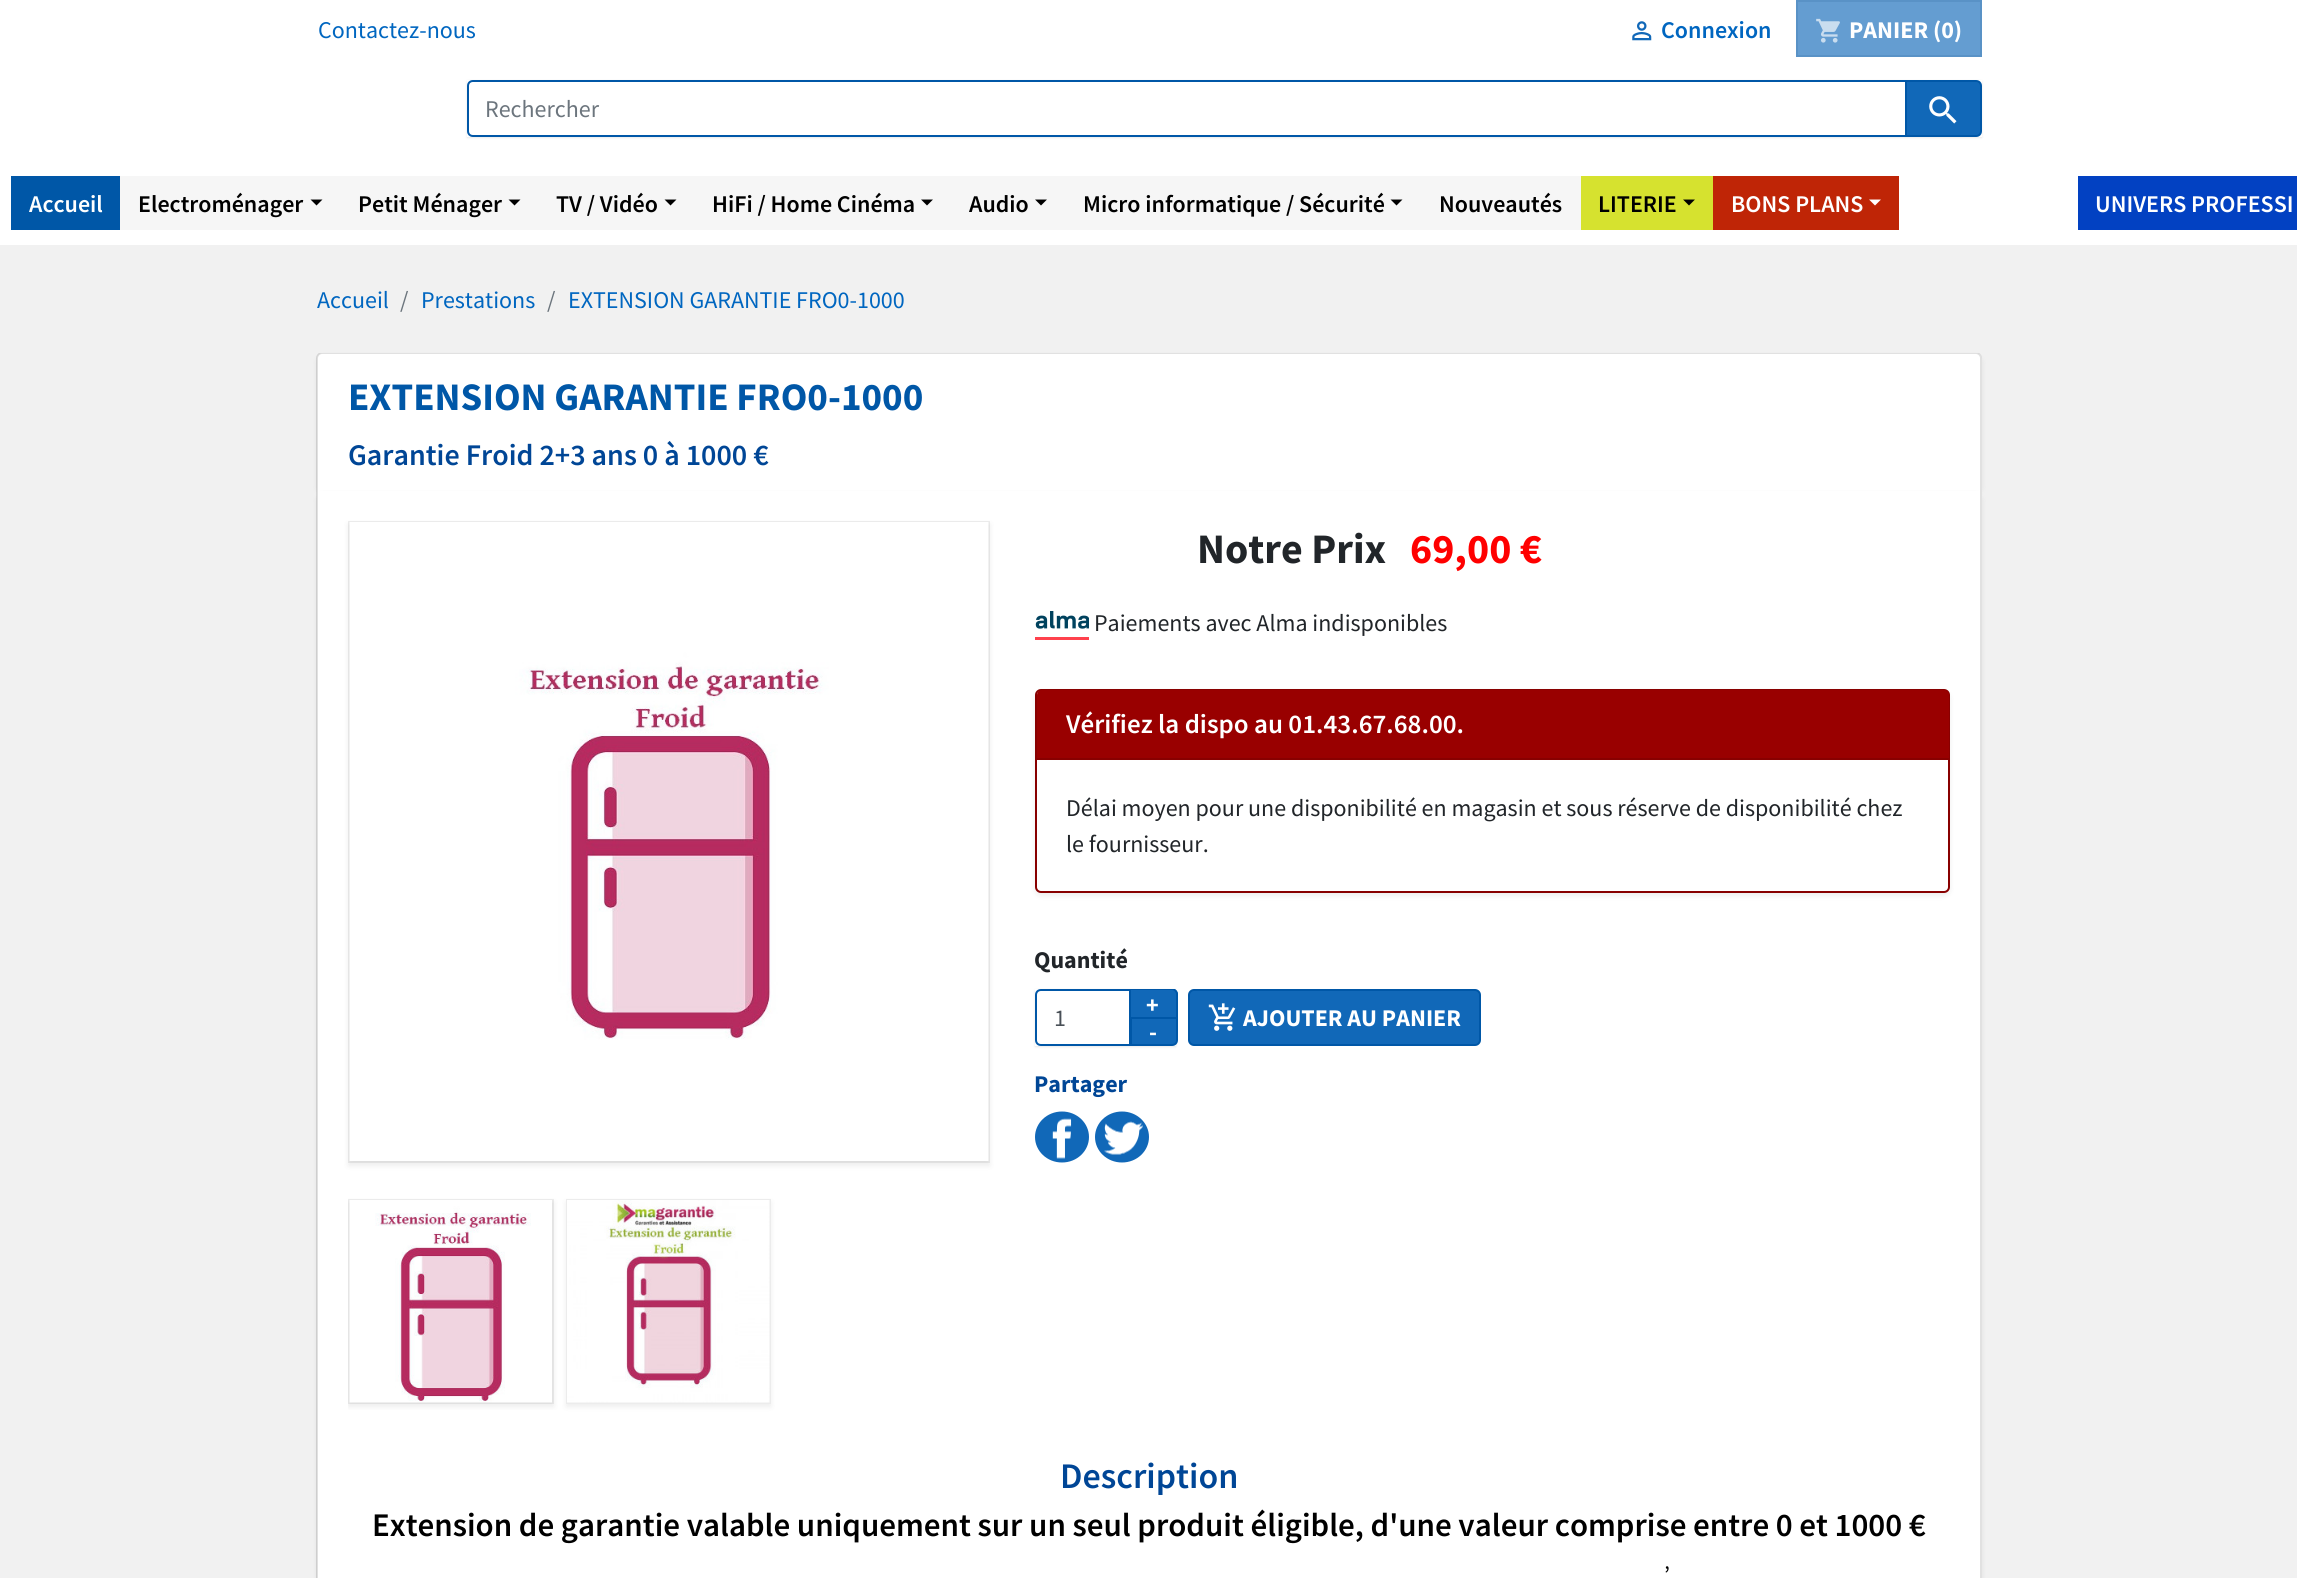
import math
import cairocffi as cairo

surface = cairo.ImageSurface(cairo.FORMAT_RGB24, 2297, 1578)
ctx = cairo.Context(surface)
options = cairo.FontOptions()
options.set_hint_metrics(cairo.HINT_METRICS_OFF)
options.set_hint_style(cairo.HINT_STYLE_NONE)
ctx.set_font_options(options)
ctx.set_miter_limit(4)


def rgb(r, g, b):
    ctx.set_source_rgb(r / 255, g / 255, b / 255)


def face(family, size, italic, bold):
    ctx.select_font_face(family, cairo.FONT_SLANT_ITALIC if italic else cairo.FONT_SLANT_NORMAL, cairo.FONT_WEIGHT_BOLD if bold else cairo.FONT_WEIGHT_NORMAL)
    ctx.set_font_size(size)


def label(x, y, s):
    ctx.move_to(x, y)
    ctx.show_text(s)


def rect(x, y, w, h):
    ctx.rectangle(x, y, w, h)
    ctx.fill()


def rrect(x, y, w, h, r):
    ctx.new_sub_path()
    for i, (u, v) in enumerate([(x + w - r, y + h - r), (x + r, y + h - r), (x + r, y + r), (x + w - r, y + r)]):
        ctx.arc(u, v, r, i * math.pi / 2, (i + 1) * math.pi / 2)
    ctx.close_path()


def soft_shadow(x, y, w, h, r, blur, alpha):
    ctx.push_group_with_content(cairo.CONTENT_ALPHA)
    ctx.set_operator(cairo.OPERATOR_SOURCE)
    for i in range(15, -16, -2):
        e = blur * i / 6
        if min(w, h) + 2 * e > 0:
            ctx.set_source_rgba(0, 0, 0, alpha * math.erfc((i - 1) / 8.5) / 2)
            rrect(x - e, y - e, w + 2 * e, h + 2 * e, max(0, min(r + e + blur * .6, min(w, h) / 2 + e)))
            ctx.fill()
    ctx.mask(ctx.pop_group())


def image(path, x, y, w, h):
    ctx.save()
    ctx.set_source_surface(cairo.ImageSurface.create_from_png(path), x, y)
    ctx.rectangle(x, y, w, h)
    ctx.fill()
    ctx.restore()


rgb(255, 255, 255)
ctx.paint()
face('Source Sans Pro', 24, 0, 0)
rgb(0, 102, 192)
label(318, 38, 'Contactez-nous')
image('image0.png', 1632, 21, 20, 20)
face('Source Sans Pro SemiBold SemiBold', 24, 0, 0)
label(1661, 38, 'Connexion')
rgb(100, 157, 209)
ctx.rectangle(1797, 1, 184, 55)
ctx.fill_preserve()
rgb(89, 146, 198)
ctx.stroke()
image('image1.png', 1816, 18, 24, 25)
face('Source Sans Pro', 24, 0, 1)
rgb(255, 255, 255)
label(1849, 38, 'PANIER (0)')
ctx.save()
ctx.set_fill_rule(cairo.FILL_RULE_EVEN_ODD)
ctx.new_path()
ctx.move_to(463, 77)
ctx.line_to(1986, 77)
ctx.line_to(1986, 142)
ctx.line_to(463, 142)
ctx.close_path()
ctx.move_to(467, 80)
ctx.line_to(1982, 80)
ctx.line_to(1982, 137)
ctx.line_to(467, 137)
ctx.close_path()
ctx.clip()
rgb(0, 0, 0)
soft_shadow(467, 81, 1515, 57, 0, 1, 0.09)
ctx.restore()
ctx.new_path()
ctx.move_to(473, 81)
ctx.line_to(1906, 81)
ctx.line_to(1906, 136)
ctx.line_to(473, 136)
ctx.curve_to(470, 136, 468, 134, 468, 131)
ctx.line_to(468, 86)
ctx.curve_to(468, 83, 470, 81, 473, 81)
ctx.close_path()
rgb(0, 87, 167)
ctx.stroke()
face('Source Sans Pro', 24, 0, 0)
rgb(108, 117, 125)
label(485, 117, 'Rechercher')
rgb(17, 104, 184)
ctx.new_path()
ctx.move_to(1906, 81)
ctx.line_to(1976, 81)
ctx.curve_to(1979, 81, 1981, 83, 1981, 86)
ctx.line_to(1981, 131)
ctx.curve_to(1981, 134, 1979, 136, 1976, 136)
ctx.line_to(1906, 136)
ctx.close_path()
ctx.fill_preserve()
rgb(0, 87, 167)
ctx.stroke()
image('image2.png', 1929, 96, 28, 28)
rect(11, 176, 109, 54)
face('Source Sans Pro SemiBold SemiBold', 24, 0, 0)
rgb(255, 255, 255)
label(29, 212, 'Accueil')
rgb(246, 246, 246)
rect(120, 176, 831, 54)
rgb(0, 0, 0)
label(138, 212, 'Electroménager')
ctx.new_path()
ctx.move_to(310.5, 199.5)
ctx.line_to(322.5, 199.5)
ctx.line_to(316.5, 205.5)
ctx.close_path()
ctx.fill()
label(358, 212, 'Petit Ménager')
ctx.new_path()
ctx.move_to(508.5, 199.5)
ctx.line_to(520.5, 199.5)
ctx.line_to(514.5, 205.5)
ctx.close_path()
ctx.fill()
label(556, 212, 'TV / Vidéo')
ctx.new_path()
ctx.move_to(664.5, 199.5)
ctx.line_to(676.5, 199.5)
ctx.line_to(670.5, 205.5)
ctx.close_path()
ctx.fill()
label(712, 212, 'HiFi / Home Cinéma')
ctx.new_path()
ctx.move_to(921, 199.5)
ctx.line_to(933, 199.5)
ctx.line_to(927, 205.5)
ctx.close_path()
ctx.fill()
rgb(246, 246, 246)
rect(951, 176, 630, 54)
rgb(0, 0, 0)
label(969, 212, 'Audio')
ctx.new_path()
ctx.move_to(1035, 199.5)
ctx.line_to(1047, 199.5)
ctx.line_to(1041, 205.5)
ctx.close_path()
ctx.fill()
label(1083, 212, 'Micro informatique / Sécurité')
ctx.new_path()
ctx.move_to(1390.5, 199.5)
ctx.line_to(1402.5, 199.5)
ctx.line_to(1396.5, 205.5)
ctx.close_path()
ctx.fill()
label(1439, 212, 'Nouveautés')
rgb(214, 226, 47)
rect(1581, 176, 132, 54)
rgb(0, 0, 0)
label(1598, 212, 'LITERIE')
ctx.new_path()
ctx.move_to(1683, 199.5)
ctx.line_to(1695, 199.5)
ctx.line_to(1689, 205.5)
ctx.close_path()
ctx.fill()
rgb(191, 37, 6)
rect(1713, 176, 186, 54)
rgb(255, 255, 255)
label(1731, 212, 'BONS PLANS')
ctx.new_path()
ctx.move_to(1869, 199.5)
ctx.line_to(1881, 199.5)
ctx.line_to(1875, 205.5)
ctx.close_path()
ctx.fill()
rgb(2, 65, 194)
rect(2078, 176, 219, 54)
rgb(255, 255, 255)
label(2095, 212, 'UNIVERS PROFESSI')
rgb(241, 241, 241)
rect(0, 245, 2297, 1333)
face('Source Sans Pro', 24, 0, 0)
rgb(0, 102, 192)
label(317, 308, 'Accueil')
rgb(108, 117, 125)
label(400, 308, '/')
rgb(0, 102, 192)
label(421, 308, 'Prestations')
rgb(108, 117, 125)
label(547, 308, '/')
rgb(0, 102, 192)
label(568, 308, 'EXTENSION GARANTIE FRO0-1000')
rgb(0, 0, 0)
soft_shadow(317, 356, 1665, 138, 6, 3, 0.07)
rgb(255, 255, 255)
ctx.new_path()
ctx.move_to(323, 353)
ctx.line_to(1976, 353)
ctx.curve_to(1979.5, 353, 1982, 355.5, 1982, 359)
ctx.line_to(1982, 491)
ctx.line_to(317, 491)
ctx.line_to(317, 359)
ctx.curve_to(317, 355.5, 319.5, 353, 323, 353)
ctx.close_path()
ctx.fill()
ctx.save()
ctx.rectangle(294, 353, 1710, 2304)
ctx.clip()
ctx.set_source_rgba(0, 0, 0, 0.12)
ctx.set_fill_rule(cairo.FILL_RULE_EVEN_ODD)
ctx.new_path()
ctx.move_to(322, 352)
ctx.line_to(1976, 352)
ctx.curve_to(1979, 352, 1982, 355, 1982, 358)
ctx.line_to(1982, 490)
ctx.line_to(316, 490)
ctx.line_to(316, 358)
ctx.curve_to(316, 355, 319, 352, 322, 352)
ctx.close_path()
ctx.move_to(322, 354)
ctx.line_to(1976, 354)
ctx.curve_to(1978, 354, 1980, 356, 1980, 358)
ctx.line_to(1980, 490)
ctx.line_to(318, 490)
ctx.line_to(318, 358)
ctx.curve_to(318, 356, 320, 354, 322, 354)
ctx.close_path()
ctx.fill()
ctx.restore()
face('Source Sans Pro', 39, 0, 1)
rgb(0, 87, 167)
label(348, 410, 'EXTENSION GARANTIE FRO0-1000')
face('Source Sans Pro SemiBold SemiBold', 30, 0, 0)
rgb(0, 70, 150)
label(348, 465, 'Garantie Froid 2+3 ans 0 à 1000 €')
rgb(0, 0, 0)
soft_shadow(317, 494, 1665, 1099, 6, 3, 0.07)
rgb(255, 255, 255)
rect(317, 491, 1665, 1087)
ctx.set_source_rgba(0, 0, 0, 0.12)
ctx.set_fill_rule(cairo.FILL_RULE_EVEN_ODD)
ctx.new_path()
ctx.move_to(316, 490)
ctx.line_to(1982, 490)
ctx.line_to(1982, 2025)
ctx.curve_to(1982, 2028, 1979, 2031, 1976, 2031)
ctx.line_to(322, 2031)
ctx.curve_to(319, 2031, 316, 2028, 316, 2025)
ctx.close_path()
ctx.move_to(318, 490)
ctx.line_to(1980, 490)
ctx.line_to(1980, 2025)
ctx.curve_to(1980, 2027, 1978, 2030, 1976, 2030)
ctx.line_to(322, 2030)
ctx.curve_to(320, 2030, 318, 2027, 318, 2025)
ctx.close_path()
ctx.fill()
rgb(0, 0, 0)
soft_shadow(348, 524, 642, 642, 0, 3, 0.07)
ctx.rectangle(349, 522, 640, 640)
ctx.set_source_rgba(0, 0, 0, 0.07)
ctx.stroke()
image('image3.png', 349, 522, 640, 639)
ctx.save()
ctx.set_fill_rule(cairo.FILL_RULE_WINDING)
ctx.rectangle(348, 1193, 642, 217)
ctx.clip()
rgb(0, 0, 0)
soft_shadow(348, 1202, 206, 205, 0, 3, 0.07)
ctx.restore()
ctx.rectangle(349, 1200, 204, 203)
ctx.stroke()
image('image4.png', 349, 1200, 203, 203)
rgb(0, 0, 0)
soft_shadow(566, 1202, 205, 205, 0, 3, 0.07)
ctx.rectangle(567, 1200, 203, 203)
rgb(236, 236, 236)
ctx.stroke()
image('image5.png', 567, 1200, 203, 203)
face('Source Sans Pro', 42, 0, 1)
rgb(33, 37, 41)
label(1197, 563, 'Notre Prix')
rgb(255, 0, 0)
label(1410, 563, '69,00 €')
image('image6.png', 1035, 611, 54, 29)
face('Source Sans Pro', 24, 0, 0)
rgb(33, 37, 41)
label(1094, 631, 'Paiements avec Alma indisponibles')
rgb(0, 0, 0)
soft_shadow(1035, 692, 915, 204, 6, 3, 0.07)
rgb(255, 255, 255)
rrect(1036, 690, 913, 202, 5)
ctx.fill_preserve()
rgb(136, 0, 0)
ctx.stroke()
rgb(153, 0, 0)
ctx.new_path()
ctx.move_to(1042, 690)
ctx.line_to(1944, 690)
ctx.curve_to(1947, 690, 1949, 692, 1949, 695)
ctx.line_to(1949, 759)
ctx.line_to(1037, 759)
ctx.line_to(1037, 695)
ctx.curve_to(1037, 692, 1039, 690, 1042, 690)
ctx.close_path()
ctx.fill()
rgb(136, 0, 0)
rect(1037, 758, 912, 2)
face('Source Sans Pro SemiBold SemiBold', 27, 0, 0)
rgb(255, 255, 255)
label(1066, 733, 'Vérifiez la dispo au 01.43.67.68.00.')
face('Source Sans Pro', 24, 0, 0)
rgb(33, 37, 41)
label(1066, 816, 'Délai moyen pour une disponibilité en magasin et sous réserve de disponibilité chez')
label(1066, 852, 'le fournisseur.')
face('Source Sans Pro', 24, 0, 1)
label(1034, 968, 'Quantité')
ctx.save()
ctx.new_path()
ctx.move_to(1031, 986)
ctx.line_to(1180, 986)
ctx.line_to(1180, 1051)
ctx.line_to(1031, 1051)
ctx.close_path()
ctx.move_to(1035, 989)
ctx.line_to(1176, 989)
ctx.line_to(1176, 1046)
ctx.line_to(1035, 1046)
ctx.close_path()
ctx.clip()
rgb(0, 0, 0)
soft_shadow(1035, 990, 141, 57, 0, 1, 0.09)
ctx.restore()
ctx.new_path()
ctx.move_to(1041, 990)
ctx.line_to(1130, 990)
ctx.line_to(1130, 1045)
ctx.line_to(1041, 1045)
ctx.curve_to(1038, 1045, 1036, 1043, 1036, 1040)
ctx.line_to(1036, 995)
ctx.curve_to(1036, 992, 1038, 990, 1041, 990)
ctx.close_path()
rgb(0, 87, 167)
ctx.stroke()
face('Source Sans Pro', 24, 0, 0)
rgb(73, 80, 87)
label(1054, 1026, '1')
rgb(17, 104, 184)
ctx.new_path()
ctx.move_to(1130, 989)
ctx.line_to(1172, 989)
ctx.curve_to(1175.5, 989, 1178, 991.5, 1178, 995)
ctx.line_to(1178, 1017)
ctx.line_to(1130, 1017)
ctx.close_path()
ctx.fill()
ctx.save()
ctx.set_fill_rule(cairo.FILL_RULE_WINDING)
ctx.rectangle(1130, 989, 48, 57)
ctx.clip()
rgb(0, 87, 167)
ctx.set_fill_rule(cairo.FILL_RULE_EVEN_ODD)
ctx.new_path()
ctx.move_to(1130, 988)
ctx.line_to(1172, 988)
ctx.curve_to(1175, 988, 1178, 991, 1178, 994)
ctx.line_to(1178, 1017)
ctx.line_to(1130, 1017)
ctx.close_path()
ctx.move_to(1131, 990)
ctx.line_to(1172, 990)
ctx.curve_to(1174, 990, 1176, 992, 1176, 994)
ctx.line_to(1176, 1017)
ctx.line_to(1131, 1017)
ctx.close_path()
ctx.fill()
ctx.restore()
face('Source Sans Pro', 24, 0, 1)
rgb(255, 255, 255)
label(1146, 1013, '+')
rgb(17, 104, 184)
ctx.new_path()
ctx.move_to(1131, 1018)
ctx.line_to(1177, 1018)
ctx.line_to(1177, 1040)
ctx.curve_to(1177, 1043, 1175, 1045, 1172, 1045)
ctx.line_to(1131, 1045)
ctx.close_path()
ctx.fill_preserve()
rgb(0, 87, 167)
ctx.stroke()
rgb(255, 255, 255)
label(1149, 1040, '-')
rgb(17, 104, 184)
rrect(1189, 990, 291, 55, 5)
ctx.fill_preserve()
rgb(0, 87, 167)
ctx.stroke()
image('image7.png', 1208, 1003, 28, 28)
rgb(255, 255, 255)
label(1243, 1026, 'AJOUTER AU PANIER')
rgb(0, 70, 150)
label(1034, 1092, 'Partager')
rgb(17, 104, 184)
ctx.new_path()
ctx.move_to(1062, 1111.5)
ctx.curve_to(1077, 1111.5, 1089, 1123, 1089, 1137)
ctx.curve_to(1089, 1151, 1077, 1162.5, 1062, 1162.5)
ctx.curve_to(1047, 1162.5, 1035, 1151, 1035, 1137)
ctx.curve_to(1035, 1123, 1047, 1111.5, 1062, 1111.5)
ctx.close_path()
ctx.fill()
image('image8.png', 1052, 1118, 20, 41)
ctx.new_path()
ctx.move_to(1122, 1111.5)
ctx.curve_to(1137, 1111.5, 1149, 1123, 1149, 1137)
ctx.curve_to(1149, 1151, 1137, 1162.5, 1122, 1162.5)
ctx.curve_to(1107, 1162.5, 1095, 1151, 1095, 1137)
ctx.curve_to(1095, 1123, 1107, 1111.5, 1122, 1111.5)
ctx.close_path()
ctx.fill()
image('image9.png', 1104, 1121, 39, 34)
face('Source Sans Pro SemiBold SemiBold', 36, 0, 0)
rgb(0, 70, 150)
label(1060, 1488, 'Description')
face('Source Sans Pro SemiBold SemiBold', 33, 0, 0)
rgb(0, 0, 0)
label(372, 1536, 'Extension de garantie valable uniquement sur un seul produit éligible, d\'une valeur comprise entre 0 et 1000 €')
face('Source Sans Pro', 24, 0, 0)
label(1664, 1583, '’')
surface.write_to_png('render.png')
